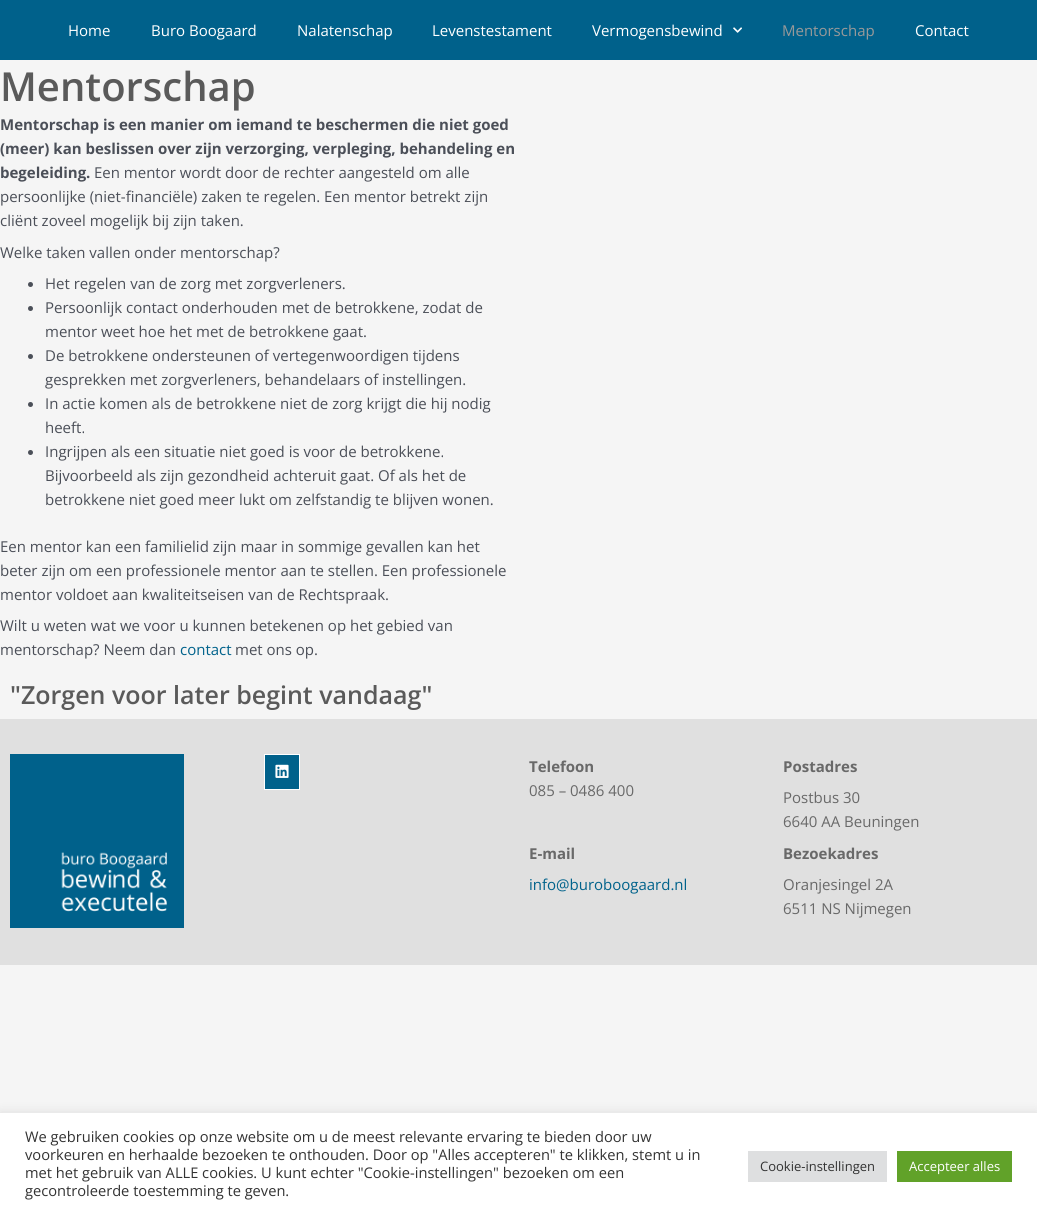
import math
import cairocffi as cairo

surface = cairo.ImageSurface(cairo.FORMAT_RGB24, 1037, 1220)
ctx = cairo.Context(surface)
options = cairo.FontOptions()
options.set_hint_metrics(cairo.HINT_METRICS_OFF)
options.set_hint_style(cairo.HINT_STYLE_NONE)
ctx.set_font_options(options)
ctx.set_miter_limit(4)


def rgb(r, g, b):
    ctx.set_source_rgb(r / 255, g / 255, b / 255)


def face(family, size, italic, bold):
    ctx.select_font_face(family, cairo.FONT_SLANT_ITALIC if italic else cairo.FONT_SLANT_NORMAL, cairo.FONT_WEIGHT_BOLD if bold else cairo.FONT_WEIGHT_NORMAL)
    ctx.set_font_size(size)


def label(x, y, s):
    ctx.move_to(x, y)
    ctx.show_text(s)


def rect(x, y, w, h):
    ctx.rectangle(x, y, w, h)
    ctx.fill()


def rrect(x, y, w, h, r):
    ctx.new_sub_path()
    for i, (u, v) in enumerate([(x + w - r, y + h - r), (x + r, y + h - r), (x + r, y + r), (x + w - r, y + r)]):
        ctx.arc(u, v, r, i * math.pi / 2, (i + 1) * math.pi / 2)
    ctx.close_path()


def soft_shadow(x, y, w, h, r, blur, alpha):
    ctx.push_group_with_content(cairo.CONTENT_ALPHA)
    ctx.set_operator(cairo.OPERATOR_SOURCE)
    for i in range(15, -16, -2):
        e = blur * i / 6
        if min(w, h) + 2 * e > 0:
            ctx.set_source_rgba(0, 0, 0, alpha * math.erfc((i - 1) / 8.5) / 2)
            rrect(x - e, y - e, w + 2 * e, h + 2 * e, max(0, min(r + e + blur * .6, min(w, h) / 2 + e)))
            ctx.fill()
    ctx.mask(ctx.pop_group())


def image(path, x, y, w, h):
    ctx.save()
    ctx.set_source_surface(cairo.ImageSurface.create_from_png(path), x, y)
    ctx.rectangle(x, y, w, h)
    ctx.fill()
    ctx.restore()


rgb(245, 245, 245)
ctx.paint()
rgb(0, 97, 139)
rect(0, 0, 1037, 60)
face('Open Sans', 15, 0, 0)
rgb(255, 255, 255)
label(68, 36, 'Home')
label(151, 36, 'Buro Boogaard')
label(297, 36, 'Nalatenschap')
label(432, 36, 'Levenstestament')
label(592, 36, 'Vermogensbewind')
image('image0.png', 733, 27, 9, 6)
rgb(153, 153, 153)
label(782, 36, 'Mentorschap')
rgb(255, 255, 255)
label(915, 36, 'Contact')
face('Open Sans SemiBold', 40, 0, 0)
rgb(90, 90, 90)
label(0, 101, 'Mentorschap')
face('Open Sans', 15, 0, 1)
rgb(75, 79, 88)
label(0, 130, 'Mentorschap is een manier om iemand te beschermen die niet goed')
label(0, 154, '(meer) kan beslissen over zijn verzorging, verpleging, behandeling en')
label(0, 178, 'begeleiding.')
face('Open Sans', 15, 0, 0)
label(94, 178, 'Een mentor wordt door de rechter aangesteld om alle')
label(0, 202, 'persoonlijke (niet-financiële) zaken te regelen. Een mentor betrekt zijn')
label(0, 226, 'cliënt zoveel mogelijk bij zijn taken.')
label(0, 258, 'Welke taken vallen onder mentorschap?')
ctx.new_path()
ctx.arc(30.5, 284.5, 2.5, 0, 2 * math.pi)
ctx.fill()
label(45, 289, 'Het regelen van de zorg met zorgverleners.')
ctx.new_path()
ctx.arc(30.5, 308.5, 2.5, 0, 2 * math.pi)
ctx.fill()
label(45, 313, 'Persoonlijk contact onderhouden met de betrokkene, zodat de')
label(45, 337, 'mentor weet hoe het met de betrokkene gaat.')
ctx.new_path()
ctx.arc(30.5, 356.5, 2.5, 0, 2 * math.pi)
ctx.fill()
label(45, 361, 'De betrokkene ondersteunen of vertegenwoordigen tijdens')
label(45, 385, 'gesprekken met zorgverleners, behandelaars of instellingen.')
ctx.new_path()
ctx.arc(30.5, 404.5, 2.5, 0, 2 * math.pi)
ctx.fill()
label(45, 409, 'In actie komen als de betrokkene niet de zorg krijgt die hij nodig')
label(45, 433, 'heeft.')
ctx.new_path()
ctx.arc(30.5, 452.5, 2.5, 0, 2 * math.pi)
ctx.fill()
label(45, 457, 'Ingrijpen als een situatie niet goed is voor de betrokkene.')
label(45, 481, 'Bijvoorbeeld als zijn gezondheid achteruit gaat. Of als het de')
label(45, 505, 'betrokkene niet goed meer lukt om zelfstandig te blijven wonen.')
label(0, 552, 'Een mentor kan een familielid zijn maar in sommige gevallen kan het')
label(0, 576, 'beter zijn om een professionele mentor aan te stellen. Een professionele')
label(0, 600, 'mentor voldoet aan kwaliteitseisen van de Rechtspraak.')
label(0, 631, 'Wilt u weten wat we voor u kunnen betekenen op het gebied van')
label(0, 655, 'mentorschap? Neem dan')
rgb(0, 98, 139)
label(180, 655, 'contact')
rgb(75, 79, 88)
label(235, 655, 'met ons op.')
face('Open Sans SemiBold', 25, 0, 0)
rgb(90, 90, 90)
label(10, 704, '"Zorgen voor later begint vandaag"')
rgb(224, 224, 224)
rect(0, 719, 1037, 246)
image('image1.png', 10, 754, 174, 174)
rgb(0, 97, 139)
ctx.rectangle(264.5, 754.5, 35, 35)
ctx.fill_preserve()
rgb(255, 255, 255)
ctx.set_line_width(1)
ctx.stroke()
image('image2.png', 275, 764, 14, 14)
face('Open Sans', 15, 0, 1)
rgb(105, 105, 105)
label(529, 772, 'Telefoon')
face('Open Sans', 15, 0, 0)
label(529, 796, '085 – 0486 400')
face('Open Sans', 15, 0, 1)
label(529, 859, 'E-mail')
face('Open Sans', 15, 0, 0)
rgb(0, 98, 139)
label(529, 890, 'info@buroboogaard.nl')
face('Open Sans', 15, 0, 1)
rgb(105, 105, 105)
label(783, 772, 'Postadres')
face('Open Sans', 15, 0, 0)
label(783, 803, 'Postbus 30')
label(783, 827, '6640 AA Beuningen')
face('Open Sans', 15, 0, 1)
label(783, 859, 'Bezoekadres')
face('Open Sans', 15, 0, 0)
label(783, 890, 'Oranjesingel 2A')
label(783, 914, '6511 NS Nijmegen')
rgb(172, 171, 171)
soft_shadow(0, 1112, 1037, 107, 0, 5, 0.3)
rgb(255, 255, 255)
rect(0, 1113, 1037, 107)
face('Open Sans', 14.65, 0, 0)
rgb(51, 51, 51)
label(25, 1142, 'We gebruiken cookies op onze website om u de meest relevante ervaring te bieden door uw')
label(25, 1160, 'voorkeuren en herhaalde bezoeken te onthouden. Door op "Alles accepteren" te klikken, stemt u in')
label(25, 1178, 'met het gebruik van ALLE cookies. U kunt echter "Cookie-instellingen" bezoeken om een')
label(25, 1196, 'gecontroleerde toestemming te geven.')
rgb(222, 223, 224)
rect(748, 1151, 139, 31)
face('Open Sans', 13, 0, 0)
rgb(51, 51, 51)
label(760, 1171, 'Cookie-instellingen')
rgb(97, 162, 41)
rect(897, 1151, 115, 31)
rgb(255, 255, 255)
label(909, 1171, 'Accepteer alles')
surface.write_to_png('render.png')
